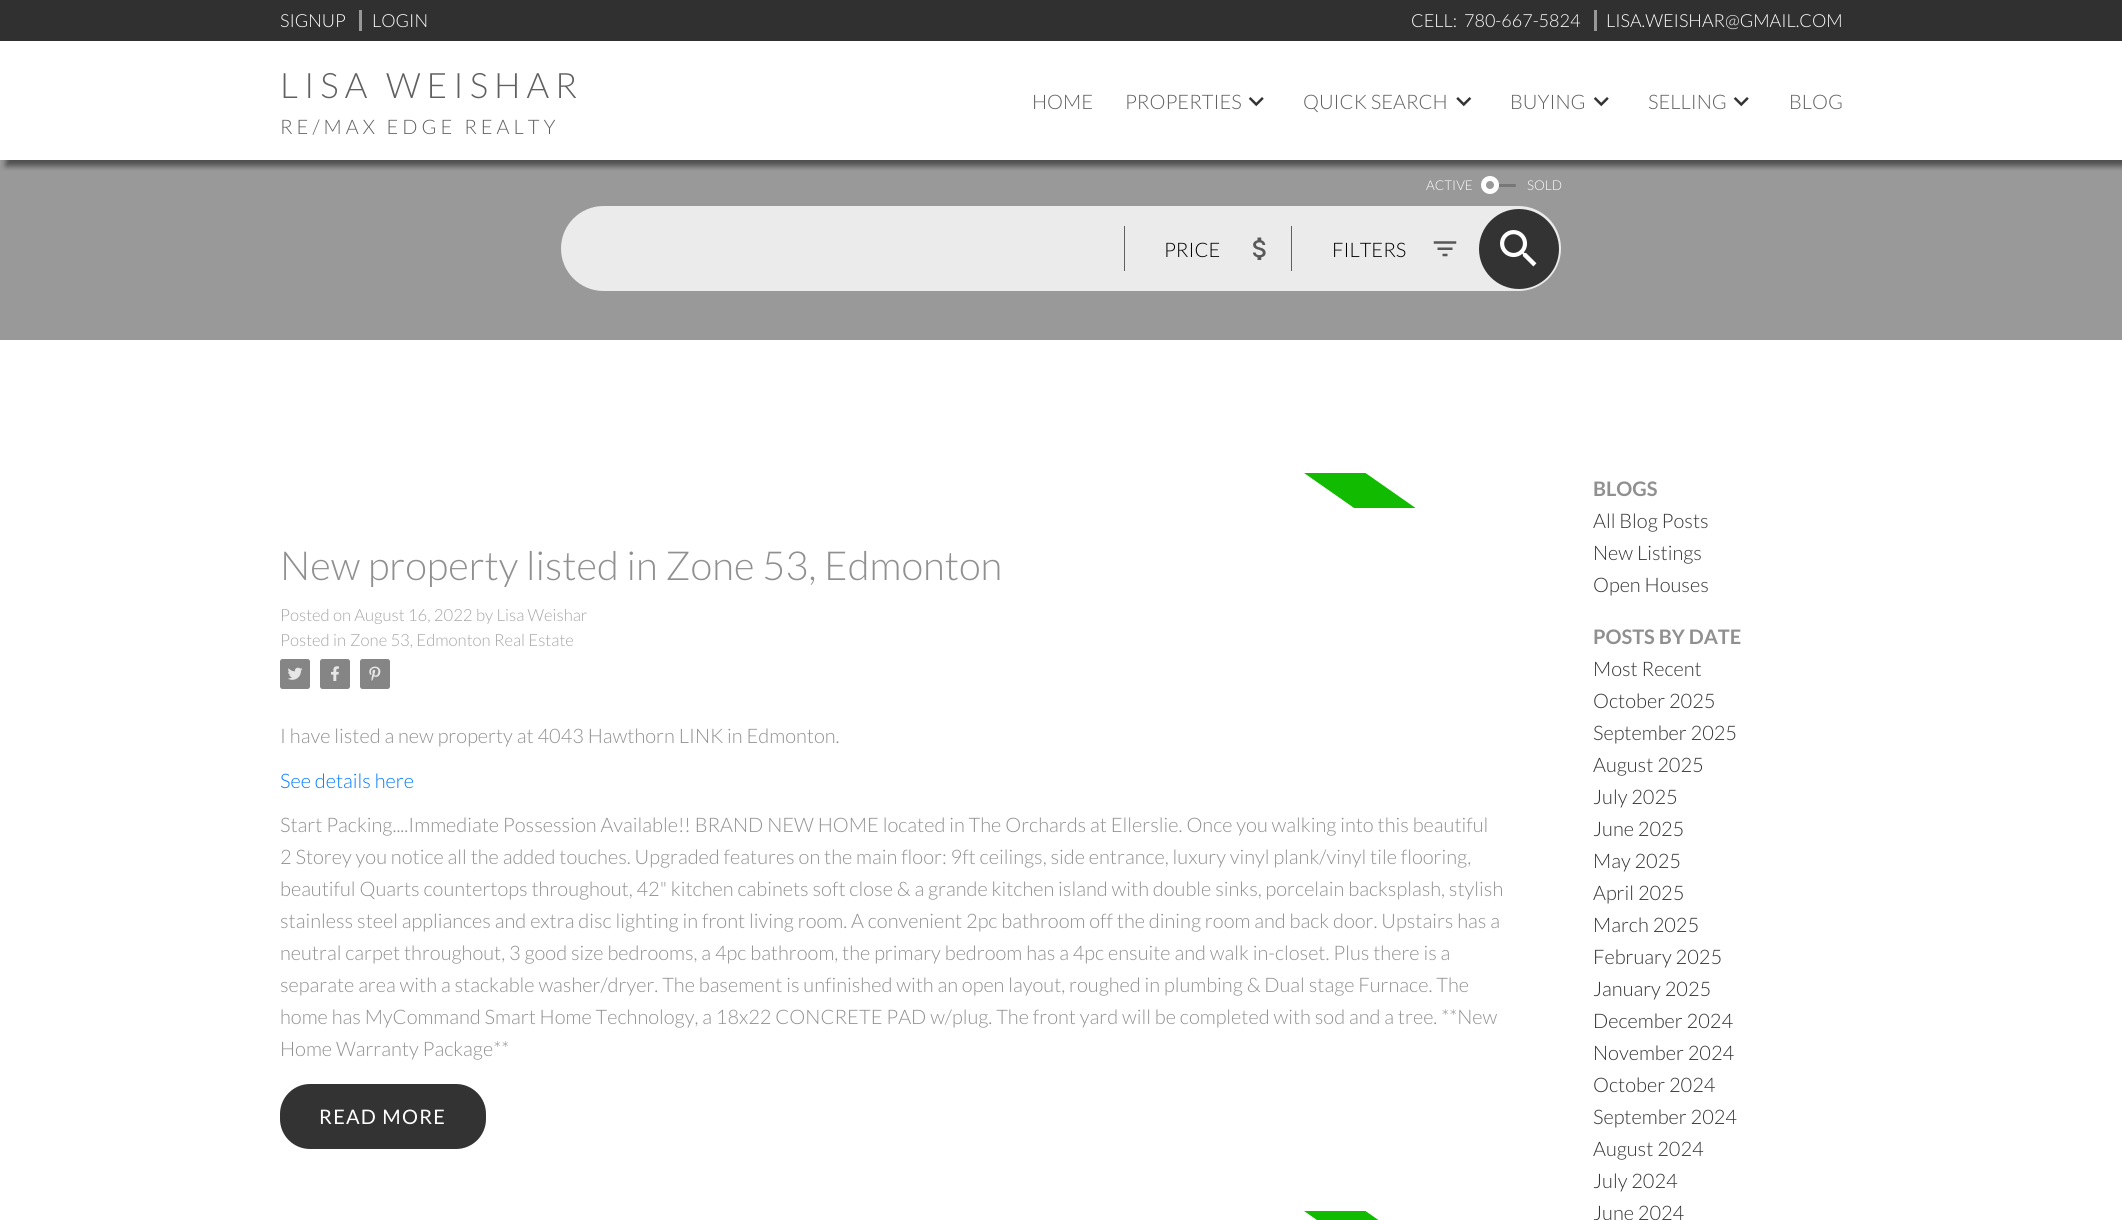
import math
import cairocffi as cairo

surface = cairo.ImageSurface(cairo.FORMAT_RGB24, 2122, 1220)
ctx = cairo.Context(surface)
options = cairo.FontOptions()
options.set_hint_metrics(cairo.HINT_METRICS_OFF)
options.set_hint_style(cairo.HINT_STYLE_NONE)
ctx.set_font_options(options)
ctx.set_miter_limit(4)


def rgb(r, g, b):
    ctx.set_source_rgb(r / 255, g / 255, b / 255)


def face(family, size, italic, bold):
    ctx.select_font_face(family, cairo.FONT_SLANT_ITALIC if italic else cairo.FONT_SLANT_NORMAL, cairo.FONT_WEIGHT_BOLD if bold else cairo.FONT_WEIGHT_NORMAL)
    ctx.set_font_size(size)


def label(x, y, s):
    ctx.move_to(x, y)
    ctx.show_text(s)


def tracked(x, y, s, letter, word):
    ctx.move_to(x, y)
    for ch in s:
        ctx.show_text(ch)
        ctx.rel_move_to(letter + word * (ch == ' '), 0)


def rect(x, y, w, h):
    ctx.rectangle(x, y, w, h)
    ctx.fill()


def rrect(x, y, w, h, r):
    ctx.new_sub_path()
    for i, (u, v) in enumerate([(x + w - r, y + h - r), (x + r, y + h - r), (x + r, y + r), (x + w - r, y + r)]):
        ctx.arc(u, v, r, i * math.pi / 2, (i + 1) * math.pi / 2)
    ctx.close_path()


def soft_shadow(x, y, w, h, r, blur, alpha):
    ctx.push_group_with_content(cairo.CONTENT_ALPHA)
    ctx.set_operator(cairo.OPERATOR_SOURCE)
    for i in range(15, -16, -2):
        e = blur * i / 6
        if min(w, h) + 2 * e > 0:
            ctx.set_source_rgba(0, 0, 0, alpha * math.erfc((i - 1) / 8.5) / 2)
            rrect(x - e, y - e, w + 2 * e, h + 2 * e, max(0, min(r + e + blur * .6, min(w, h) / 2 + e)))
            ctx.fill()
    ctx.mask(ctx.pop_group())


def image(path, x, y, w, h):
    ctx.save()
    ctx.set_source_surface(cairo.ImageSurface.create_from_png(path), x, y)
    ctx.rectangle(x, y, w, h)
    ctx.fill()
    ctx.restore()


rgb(255, 255, 255)
ctx.paint()
rgb(153, 153, 153)
rect(0, 160, 2122, 180)
ctx.save()
ctx.rectangle(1, 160, 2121, 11)
ctx.clip()
rgb(0, 0, 0)
soft_shadow(6, 6, 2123, 160, 0, 3, 0.5)
ctx.restore()
rgb(48, 48, 48)
rect(0, 0, 2122, 41)
face('Lato Light', 18, 0, 0)
rgb(255, 255, 255)
label(280, 27, 'SIGNUP')
label(372, 27, 'LOGIN')
rgb(152, 152, 152)
rect(359, 10, 3, 21)
rgb(255, 255, 255)
label(1411, 27, 'CELL:')
label(1464, 27, '780-667-5824')
label(1606, 27, 'LISA.WEISHAR@GMAIL.COM')
rgb(152, 152, 152)
rect(1594, 10, 3, 21)
face('Lato Light', 35, 0, 0)
rgb(96, 96, 96)
tracked(280, 98, 'LISA WEISHAR', 6, 0)
face('Lato Light', 20, 0, 0)
tracked(280, 134, 'RE/MAX EDGE REALTY', 4, 0)
label(1032, 109, 'HOME')
label(1125, 109, 'PROPERTIES')
image('image0.png', 1248, 97, 16, 10)
label(1303, 109, 'QUICK SEARCH')
image('image1.png', 1456, 97, 16, 10)
label(1510, 109, 'BUYING')
image('image0.png', 1593, 97, 16, 10)
label(1648, 109, 'SELLING')
image('image0.png', 1733, 97, 16, 10)
label(1789, 109, 'BLOG')
face('Lato Light', 13.5, 0, 0)
rgb(255, 255, 255)
label(1426, 190, 'ACTIVE')
ctx.new_path()
ctx.arc(1490, 185, 6.5, 0, 2 * math.pi)
ctx.set_line_width(5)
ctx.stroke()
rgb(119, 119, 119)
ctx.new_path()
ctx.move_to(1499, 184)
ctx.line_to(1514.5, 184)
ctx.curve_to(1515.5, 184, 1516, 184.5, 1516, 185.5)
ctx.curve_to(1516, 186.5, 1515.5, 187, 1514.5, 187)
ctx.line_to(1499, 187)
ctx.close_path()
ctx.fill()
rgb(255, 255, 255)
label(1527, 190, 'SOLD')
rgb(235, 235, 235)
rrect(561, 206, 1000, 85, 42.5)
ctx.fill()
image('image2.png', 1252, 237, 14, 23)
rgb(96, 96, 96)
rect(1124, 226, 1, 45)
face('Lato Light', 20, 0, 0)
rgb(0, 0, 0)
label(1164, 257, 'PRICE')
image('image3.png', 1433, 241, 24, 16)
rgb(96, 96, 96)
rect(1291, 226, 1, 45)
rgb(0, 0, 0)
label(1332, 257, 'FILTERS')
rgb(51, 51, 51)
ctx.new_path()
ctx.arc(1519, 249, 40, 0, 2 * math.pi)
ctx.fill()
image('image4.png', 1500, 230, 37, 37)
ctx.save()
ctx.rectangle(280, 473, 1224, 35)
ctx.clip()
rgb(17, 187, 0)
ctx.new_path()
ctx.move_to(1304, 430)
ctx.line_to(1560, 609)
ctx.line_to(1540, 638)
ctx.line_to(1284, 459)
ctx.close_path()
ctx.fill()
ctx.restore()
face('Lato Light', 40, 0, 0)
rgb(144, 144, 144)
label(280, 580, 'New property listed in Zone 53, Edmonton')
face('Lato Light', 16.7, 0, 0)
rgb(166, 166, 166)
label(280, 621, 'Posted on August 16, 2022')
label(476, 621, 'by Lisa Weishar')
label(280, 646, 'Posted in')
label(350, 646, 'Zone 53, Edmonton Real Estate')
rgb(133, 133, 133)
rrect(280, 659, 30, 30, 2.5)
ctx.fill()
image('image5.png', 288, 667, 15, 13)
rrect(320, 659, 30, 30, 2.5)
ctx.fill()
image('image6.png', 331, 666, 8, 15)
rrect(360, 659, 30, 30, 2.5)
ctx.fill()
image('image7.png', 369, 666, 12, 15)
face('Lato Light', 20, 0, 0)
rgb(144, 144, 144)
label(280, 743, 'I have listed a new property at 4043 Hawthorn LINK in Edmonton.')
rgb(0, 123, 255)
label(280, 788, 'See details here')
rgb(144, 144, 144)
label(280, 832, 'Start Packing....Immediate Possession Available!! BRAND NEW HOME located in The Orchards at Ellerslie. Once you walking into this beautiful')
label(280, 864, '2 Storey you notice all the added touches. Upgraded features on the main floor: 9ft ceilings, side entrance, luxury vinyl plank/vinyl tile flooring,')
label(280, 896, 'beautiful Quarts countertops throughout, 42" kitchen cabinets soft close & a grande kitchen island with double sinks, porcelain backsplash, stylish')
label(280, 928, 'stainless steel appliances and extra disc lighting in front living room. A convenient 2pc bathroom off the dining room and back door. Upstairs has a')
label(280, 960, 'neutral carpet throughout, 3 good size bedrooms, a 4pc bathroom, the primary bedroom has a 4pc ensuite and walk in-closet. Plus there is a')
label(280, 992, 'separate area with a stackable washer/dryer. The basement is unfinished with an open layout, roughed in plumbing & Dual stage Furnace. The')
label(280, 1024, 'home has MyCommand Smart Home Technology, a 18x22 CONCRETE PAD w/plug. The front yard will be completed with sod and a tree. **New')
label(280, 1056, 'Home Warranty Package**')
rgb(51, 51, 51)
rrect(280, 1084, 206, 65, 30)
ctx.fill()
face('Lato', 20, 0, 0)
rgb(255, 255, 255)
tracked(319, 1124, 'READ MORE', 1.25, 0)
ctx.save()
ctx.rectangle(280, 1211, 1224, 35)
ctx.clip()
rgb(17, 187, 0)
ctx.new_path()
ctx.move_to(1304, 1168)
ctx.line_to(1560, 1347)
ctx.line_to(1540, 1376)
ctx.line_to(1284, 1197)
ctx.close_path()
ctx.fill()
ctx.restore()
face('Lato', 20, 0, 1)
rgb(144, 144, 144)
label(1593, 496, 'BLOGS')
face('Lato Light', 20, 0, 0)
rgb(51, 51, 51)
label(1593, 528, 'All Blog Posts')
label(1593, 560, 'New Listings')
label(1593, 592, 'Open Houses')
face('Lato', 20, 0, 1)
rgb(144, 144, 144)
label(1593, 644, 'POSTS BY DATE')
face('Lato Light', 20, 0, 0)
rgb(51, 51, 51)
label(1593, 676, 'Most Recent')
label(1593, 708, 'October 2025')
label(1593, 740, 'September 2025')
label(1593, 772, 'August 2025')
label(1593, 804, 'July 2025')
label(1593, 836, 'June 2025')
label(1593, 868, 'May 2025')
label(1593, 900, 'April 2025')
label(1593, 932, 'March 2025')
label(1593, 964, 'February 2025')
label(1593, 996, 'January 2025')
label(1593, 1028, 'December 2024')
label(1593, 1060, 'November 2024')
label(1593, 1092, 'October 2024')
label(1593, 1124, 'September 2024')
label(1593, 1156, 'August 2024')
label(1593, 1188, 'July 2024')
label(1593, 1220, 'June 2024')
surface.write_to_png('render.png')
